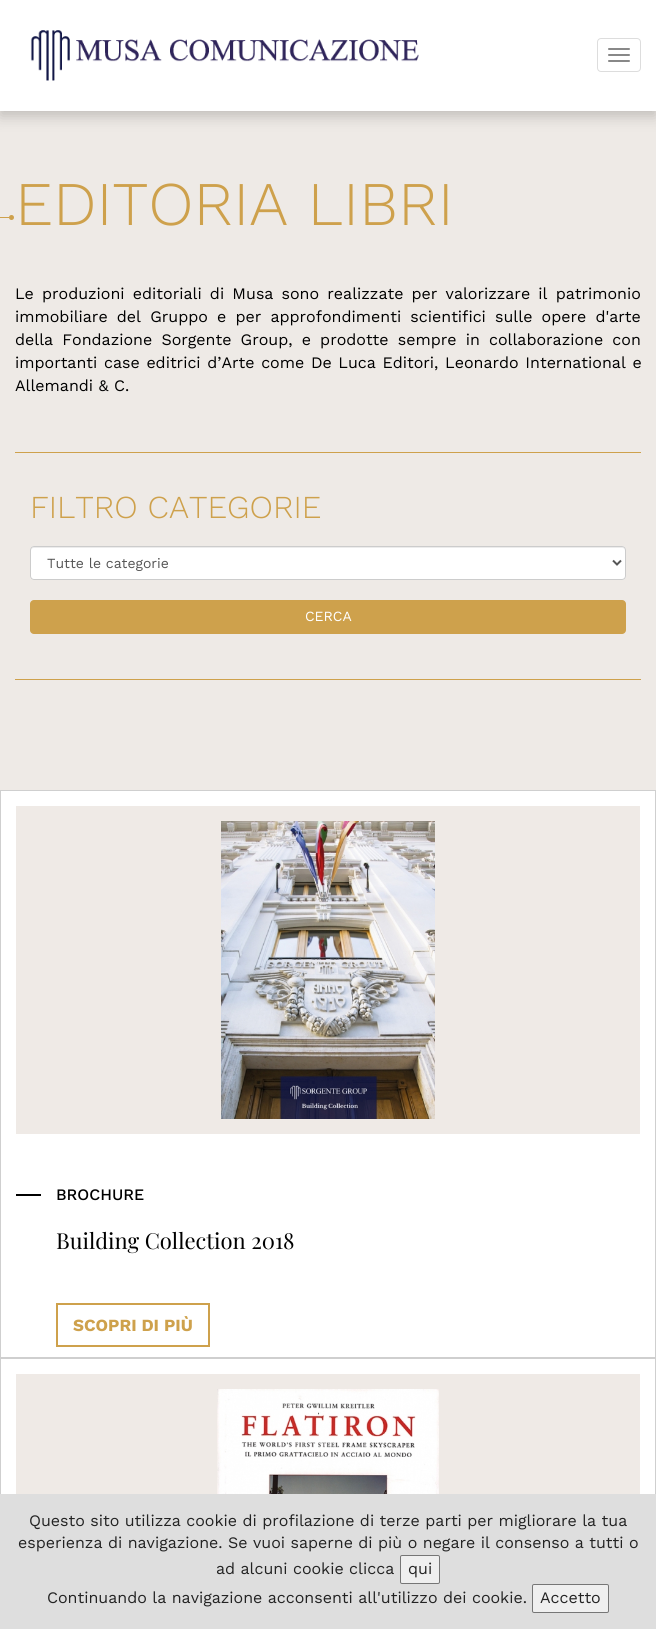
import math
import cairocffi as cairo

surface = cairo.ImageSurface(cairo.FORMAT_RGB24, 656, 1629)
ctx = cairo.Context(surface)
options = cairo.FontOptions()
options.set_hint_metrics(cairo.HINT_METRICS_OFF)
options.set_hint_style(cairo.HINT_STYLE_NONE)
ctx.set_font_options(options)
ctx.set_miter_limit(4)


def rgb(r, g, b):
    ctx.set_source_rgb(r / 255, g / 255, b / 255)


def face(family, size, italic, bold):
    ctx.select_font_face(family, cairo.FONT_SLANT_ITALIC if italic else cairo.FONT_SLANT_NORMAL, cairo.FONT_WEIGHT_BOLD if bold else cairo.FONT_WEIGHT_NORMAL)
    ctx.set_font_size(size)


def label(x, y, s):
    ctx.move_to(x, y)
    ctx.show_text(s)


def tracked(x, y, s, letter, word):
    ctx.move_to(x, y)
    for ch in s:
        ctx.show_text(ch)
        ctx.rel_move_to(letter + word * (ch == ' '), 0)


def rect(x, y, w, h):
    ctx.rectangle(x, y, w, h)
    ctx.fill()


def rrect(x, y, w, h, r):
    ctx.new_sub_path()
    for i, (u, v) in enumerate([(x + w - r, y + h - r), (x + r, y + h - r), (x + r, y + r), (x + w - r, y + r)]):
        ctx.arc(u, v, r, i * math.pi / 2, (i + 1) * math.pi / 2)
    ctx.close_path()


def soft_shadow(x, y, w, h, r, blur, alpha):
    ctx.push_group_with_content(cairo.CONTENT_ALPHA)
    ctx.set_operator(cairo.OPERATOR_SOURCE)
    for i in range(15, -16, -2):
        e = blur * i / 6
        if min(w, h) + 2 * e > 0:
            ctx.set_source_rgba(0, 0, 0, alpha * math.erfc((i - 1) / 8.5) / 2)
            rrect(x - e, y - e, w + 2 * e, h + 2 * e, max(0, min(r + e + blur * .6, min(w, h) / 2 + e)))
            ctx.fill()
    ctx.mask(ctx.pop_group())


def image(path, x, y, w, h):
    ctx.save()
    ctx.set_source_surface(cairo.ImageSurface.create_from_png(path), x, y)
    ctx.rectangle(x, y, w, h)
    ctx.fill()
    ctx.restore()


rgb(255, 255, 255)
ctx.paint()
rgb(238, 234, 230)
rect(0, 111, 656, 679)
rgb(0, 0, 0)
soft_shadow(0, 5, 656, 111, 0, 7.5, 0.2)
rgb(255, 255, 255)
rect(0, 0, 656, 111)
image('image0.png', 30, 30, 389, 51)
rrect(597.5, 38.5, 43, 33, 3.5)
rgb(221, 221, 221)
ctx.set_line_width(1)
ctx.stroke()
rgb(136, 136, 136)
rrect(608, 48, 22, 2, 1)
ctx.fill()
rrect(608, 54, 22, 2, 1)
ctx.fill()
rrect(608, 60, 22, 2, 1)
ctx.fill()
rgb(206, 161, 76)
rect(0, 217, 9, 1)
ctx.arc(11.5, 217.5, 2.5, 0, 2 * math.pi)
ctx.fill()
face('Work Sans Light', 62, 0, 0)
label(15, 225, 'EDITORIA LIBRI')
rect(15, 452, 626, 1)
face('Work Sans', 16, 0, 0)
rgb(0, 0, 0)
tracked(15, 299, 'Le produzioni editoriali di Musa sono realizzate per valorizzare il patrimonio', 0, 2.75)
tracked(15, 322, 'immobiliare del Gruppo e per approfondimenti scientifici sulle opere d\'arte', 0, 3.75)
tracked(15, 345, 'della Fondazione Sorgente Group, e prodotte sempre in collaborazione con', 0, 3.75)
tracked(15, 368, 'importanti case editrici d’Arte come De Luca Editori, Leonardo International e', 0, 1.25)
label(15, 391, 'Allemandi & C.')
rgb(206, 161, 76)
rect(15, 679, 626, 1)
face('Work Sans Light', 32, 0, 0)
label(30, 518, 'FILTRO CATEGORIE')
rgb(255, 255, 255)
rrect(30, 546, 596, 34, 4)
ctx.fill()
rgb(236, 236, 236)
ctx.new_path()
ctx.move_to(34, 548)
ctx.line_to(622, 548)
ctx.curve_to(624, 548, 625, 549, 625, 551)
ctx.line_to(625, 550)
ctx.curve_to(625, 548, 624, 547, 622, 547)
ctx.line_to(34, 547)
ctx.curve_to(32, 547, 31, 548, 31, 550)
ctx.line_to(31, 551)
ctx.curve_to(31, 549, 32, 548, 34, 548)
ctx.close_path()
ctx.fill()
rrect(30.5, 546.5, 595, 33, 3.5)
rgb(204, 204, 204)
ctx.stroke()
ctx.new_path()
ctx.move_to(613, 560.5)
ctx.line_to(617, 564.5)
ctx.line_to(621, 560.5)
rgb(85, 85, 85)
ctx.set_line_width(2)
ctx.stroke()
face('Work Sans', 14, 0, 0)
label(47, 568, 'Tutte le categorie')
rgb(206, 161, 76)
rrect(30, 600, 596, 34, 4)
ctx.fill()
rgb(255, 255, 255)
label(305, 621, 'CERCA')
ctx.rectangle(0.5, 790.5, 655, 567)
rgb(207, 207, 207)
ctx.set_line_width(1)
ctx.stroke()
rgb(239, 234, 230)
rect(16, 806, 624, 328)
image('image1.png', 221, 821, 214, 298)
rgb(0, 0, 0)
rect(16, 1194, 25, 2)
face('Work Sans Medium', 16, 0, 0)
label(56, 1200, 'BROCHURE')
face('Playfair Display', 22, 0, 0)
label(56, 1249, 'Building Collection 2018')
ctx.rectangle(57, 1304, 152, 42)
rgb(206, 161, 76)
ctx.set_line_width(2)
ctx.stroke()
face('Work Sans', 17, 0, 1)
label(73, 1331, 'SCOPRI DI PIÙ')
ctx.rectangle(0.5, 1358.5, 655, 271)
rgb(207, 207, 207)
ctx.set_line_width(1)
ctx.stroke()
rgb(239, 234, 230)
rect(16, 1374, 624, 120)
image('image2.png', 217, 1389, 222, 105)
rgb(222, 222, 222)
rect(0, 1494, 656, 135)
face('Work Sans', 16, 0, 0)
rgb(35, 35, 35)
label(29, 1526, 'Questo sito utilizza cookie di profilazione di terze parti per migliorare la tua')
label(18, 1548, 'esperienza di navigazione. Se vuoi saperne di più o negare il consenso a tutti o')
label(216, 1574, 'ad alcuni cookie clicca')
rgb(239, 239, 239)
rrect(400.5, 1555.5, 39, 28, 1.5)
ctx.fill_preserve()
rgb(118, 118, 118)
ctx.stroke()
rgb(35, 35, 35)
label(408, 1574, 'qui')
label(47, 1603, 'Continuando la navigazione acconsenti all\'utilizzo dei cookie.')
rgb(239, 239, 239)
rrect(532.5, 1584.5, 76, 28, 1.5)
ctx.fill_preserve()
rgb(118, 118, 118)
ctx.stroke()
rgb(35, 35, 35)
label(540, 1603, 'Accetto')
surface.write_to_png('render.png')
